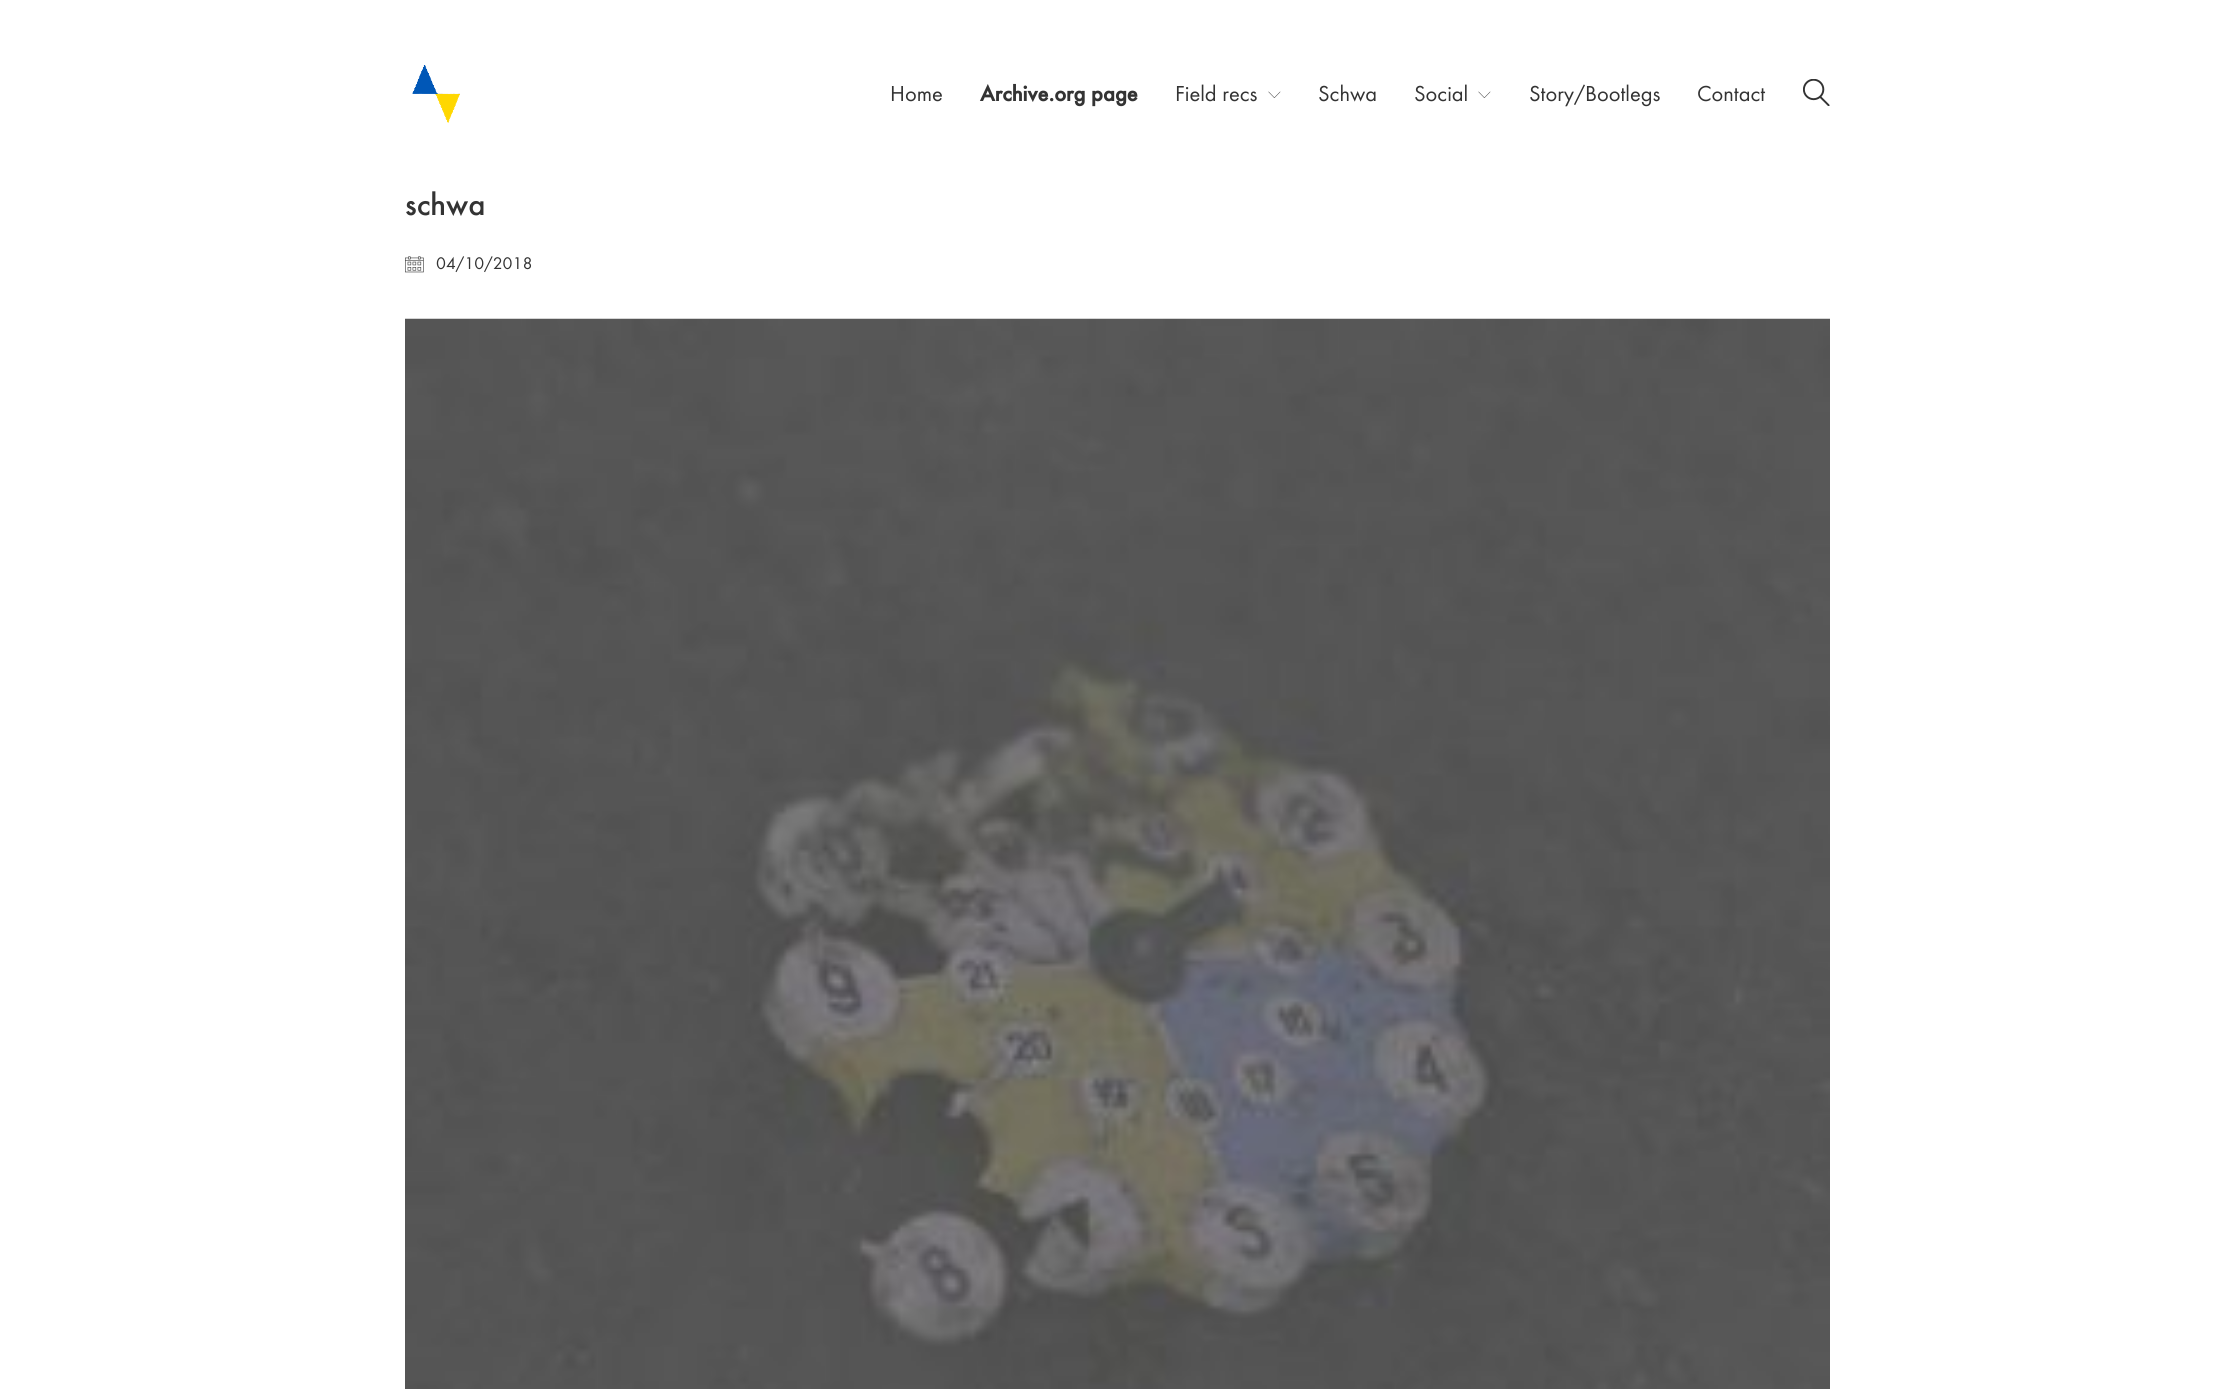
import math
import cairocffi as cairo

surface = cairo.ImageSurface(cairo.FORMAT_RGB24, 2234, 1389)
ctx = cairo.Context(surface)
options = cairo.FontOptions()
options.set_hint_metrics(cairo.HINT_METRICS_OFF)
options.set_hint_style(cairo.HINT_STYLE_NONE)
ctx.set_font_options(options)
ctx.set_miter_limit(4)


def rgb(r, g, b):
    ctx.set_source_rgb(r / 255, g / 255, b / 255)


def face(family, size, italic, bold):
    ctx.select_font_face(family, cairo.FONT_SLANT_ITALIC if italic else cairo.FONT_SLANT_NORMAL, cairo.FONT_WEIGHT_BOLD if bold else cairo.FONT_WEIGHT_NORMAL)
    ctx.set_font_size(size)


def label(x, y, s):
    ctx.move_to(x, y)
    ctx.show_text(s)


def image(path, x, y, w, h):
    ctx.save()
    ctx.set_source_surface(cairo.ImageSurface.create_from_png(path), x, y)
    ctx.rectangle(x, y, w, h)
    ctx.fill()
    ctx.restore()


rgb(255, 255, 255)
ctx.paint()
image('image0.png', 412, 65, 48, 58)
face('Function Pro', 22.5, 0, 0)
rgb(51, 51, 51)
label(890, 101, 'Home')
face('Function Pro', 22.5, 0, 1)
label(980, 101, 'Archive.org page')
face('Function Pro', 22.5, 0, 0)
label(1175, 101, 'Field recs')
image('image1.png', 1268, 91, 13, 7)
label(1318, 101, 'Schwa')
label(1414, 101, 'Social')
image('image1.png', 1478, 91, 13, 7)
label(1529, 101, 'Story/Bootlegs')
label(1697, 101, 'Contact')
image('image2.png', 1803, 79, 27, 27)
face('Function Pro Medium', 32.5, 0, 0)
label(405, 215, 'schwa')
image('image3.png', 405, 256, 19, 17)
face('Function Pro', 17.5, 0, 0)
label(436, 269, '04/10/2018')
image('image4.png', 405, 318, 1425, 1071)
surface.write_to_png('render.png')
